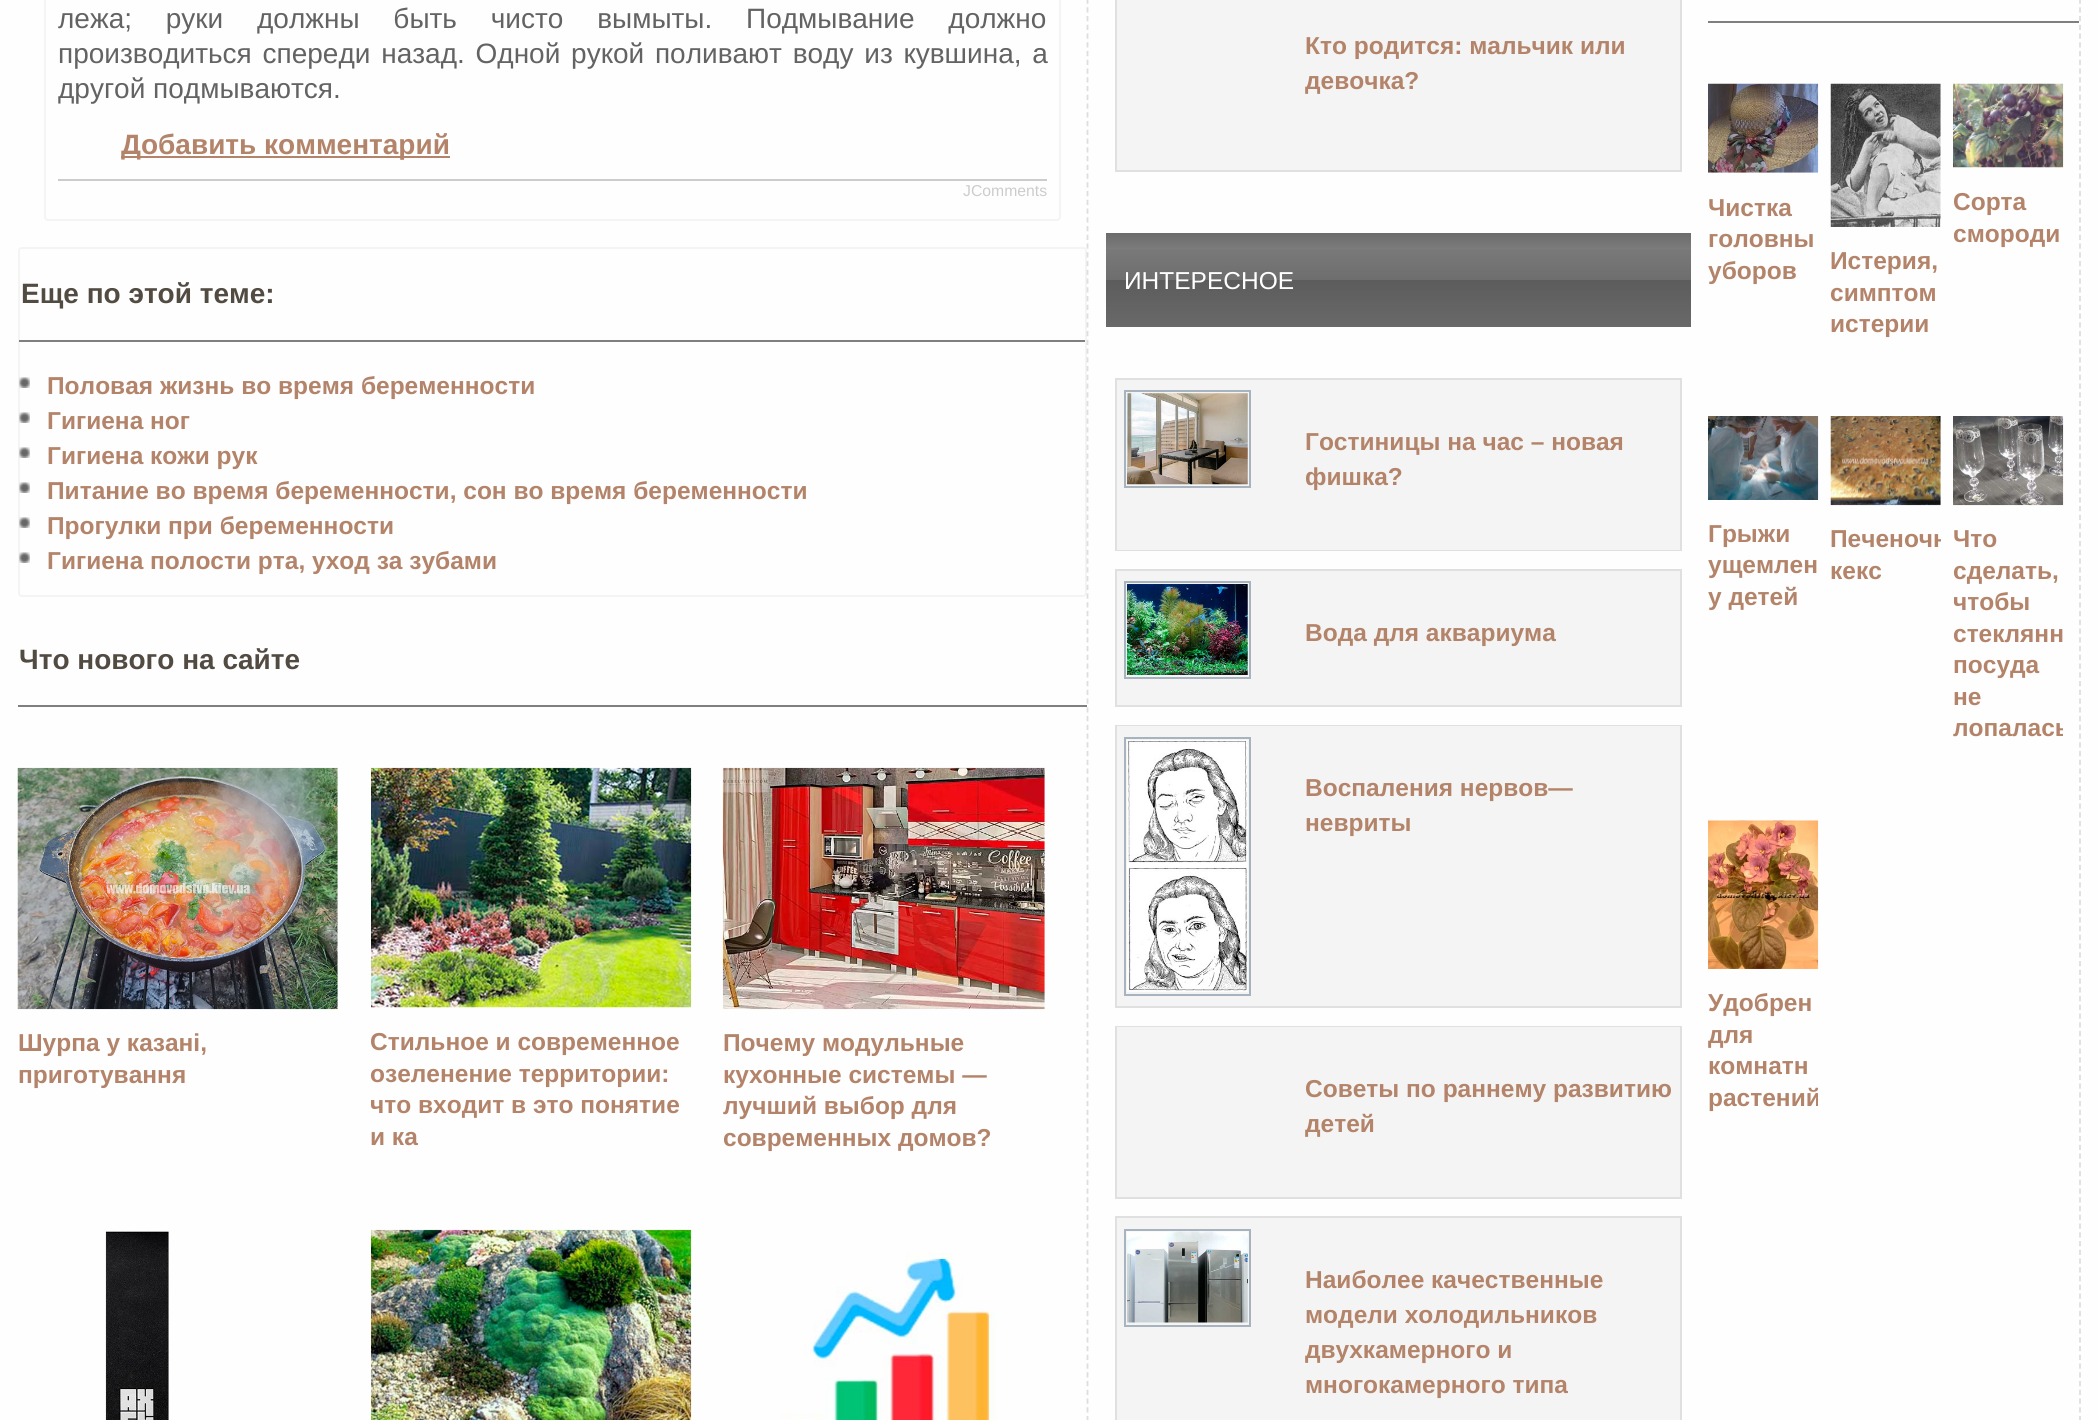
import math
import cairocffi as cairo

surface = cairo.ImageSurface(cairo.FORMAT_RGB24, 2098, 1420)
ctx = cairo.Context(surface)
options = cairo.FontOptions()
options.set_hint_metrics(cairo.HINT_METRICS_OFF)
options.set_hint_style(cairo.HINT_STYLE_NONE)
ctx.set_font_options(options)
ctx.set_miter_limit(4)


def rgb(r, g, b):
    ctx.set_source_rgb(r / 255, g / 255, b / 255)


def face(family, size, italic, bold):
    ctx.select_font_face(family, cairo.FONT_SLANT_ITALIC if italic else cairo.FONT_SLANT_NORMAL, cairo.FONT_WEIGHT_BOLD if bold else cairo.FONT_WEIGHT_NORMAL)
    ctx.set_font_size(size)


def label(x, y, s):
    ctx.move_to(x, y)
    ctx.show_text(s)


def tracked(x, y, s, letter, word):
    ctx.move_to(x, y)
    for ch in s:
        ctx.show_text(ch)
        ctx.rel_move_to(letter + word * (ch == ' '), 0)


def rect(x, y, w, h):
    ctx.rectangle(x, y, w, h)
    ctx.fill()


def rrect(x, y, w, h, r):
    ctx.new_sub_path()
    for i, (u, v) in enumerate([(x + w - r, y + h - r), (x + r, y + h - r), (x + r, y + r), (x + w - r, y + r)]):
        ctx.arc(u, v, r, i * math.pi / 2, (i + 1) * math.pi / 2)
    ctx.close_path()


def image(path, x, y, w, h):
    ctx.save()
    ctx.set_source_surface(cairo.ImageSurface.create_from_png(path), x, y)
    ctx.rectangle(x, y, w, h)
    ctx.fill()
    ctx.restore()


rgb(254, 254, 254)
ctx.paint()
rrect(45, -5, 1015, 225, 3)
rgb(244, 244, 244)
ctx.stroke()
face('Liberation Sans', 28, 0, 0)
rgb(99, 99, 99)
tracked(58, 28, 'лежа; руки должны быть чисто вымыты. Подмывание должно', 0, 26)
tracked(58, 63, 'производиться спереди назад. Одной рукой поливают воду из кувшина, а', 0, 3)
label(58, 98, 'другой подмываются.')
rgb(179, 132, 106)
rect(121, 156, 329, 2)
face('Liberation Sans', 28, 0, 1)
label(121, 154, 'Добавить комментарий')
rgb(204, 204, 204)
rect(58, 179, 989, 2)
face('Liberation Sans', 15.75, 0, 0)
label(963, 196, 'JComments')
rrect(19, 248, 1067, 348, 3)
rgb(244, 244, 244)
ctx.stroke()
rgb(127, 127, 127)
rect(19, 340, 1066, 2)
face('Liberation Sans', 28, 0, 1)
rgb(82, 75, 66)
label(21, 303, 'Еще по этой теме:')
image('image0.png', 19, 377, 11, 11)
face('Liberation Sans', 24.5, 0, 1)
rgb(179, 132, 106)
label(47, 394, 'Половая жизнь во время беременности')
image('image0.png', 19, 412, 11, 11)
label(47, 429, 'Гигиена ног')
image('image0.png', 19, 447, 11, 11)
label(47, 464, 'Гигиена кожи рук')
image('image0.png', 19, 482, 11, 11)
label(47, 499, 'Питание во время беременности, сон во время беременности')
image('image0.png', 19, 517, 11, 11)
label(47, 534, 'Прогулки при беременности')
image('image0.png', 19, 552, 11, 11)
label(47, 569, 'Гигиена полости рта, уход за зубами')
ctx.new_path()
ctx.move_to(1087.5, -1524)
ctx.line_to(1087.5, 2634)
rgb(222, 222, 222)
ctx.set_line_width(1.8)
ctx.set_dash([5.25, 3.5])
ctx.stroke()
rgb(127, 127, 127)
rect(18, 705, 1069, 2)
face('Liberation Sans', 28, 0, 1)
rgb(82, 75, 66)
label(19, 669, 'Что нового на сайте')
image('image1.png', 17, 767, 321, 243)
face('Liberation Sans', 24.5, 0, 1)
rgb(179, 132, 106)
label(18, 1051, 'Шурпа у казані,')
label(18, 1083, 'приготування')
image('image2.png', 371, 767, 321, 241)
label(370, 1050, 'Стильное и современное')
label(370, 1082, 'озеленение территории:')
label(370, 1113, 'что входит в это понятие')
label(370, 1145, 'и ка')
image('image3.png', 722, 767, 323, 243)
label(723, 1051, 'Почему модульные')
label(723, 1083, 'кухонные системы —')
label(723, 1114, 'лучший выбор для')
label(723, 1146, 'современных домов?')
image('image4.png', 105, 1231, 64, 189)
image('image5.png', 371, 1229, 321, 191)
image('image6.png', 780, 1253, 217, 167)
ctx.rectangle(1116, -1, 565, 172)
rgb(224, 224, 224)
ctx.set_line_width(2)
ctx.set_dash([])
ctx.stroke()
rgb(244, 244, 244)
rect(1117, 0, 563, 170)
rgb(179, 132, 106)
label(1305, 54, 'Кто родится: мальчик или')
label(1305, 89, 'девочка?')
gradient = cairo.LinearGradient(1398, 233, 1398, 327)
gradient.add_color_stop_rgba(0, 0.42, 0.42, 0.42, 1)
gradient.add_color_stop_rgba(0.15, 0.478, 0.478, 0.478, 1)
gradient.add_color_stop_rgba(0.5, 0.431, 0.431, 0.431, 1)
gradient.add_color_stop_rgba(0.5, 0.361, 0.361, 0.361, 1)
gradient.add_color_stop_rgba(1, 0.412, 0.412, 0.412, 1)
ctx.set_source(gradient)
rect(1106, 233, 585, 94)
gradient = cairo.LinearGradient(1398, 233, 1398, 327)
gradient.add_color_stop_rgba(0, 0.42, 0.42, 0.42, 0.2)
gradient.add_color_stop_rgba(0.15, 0.51, 0.51, 0.51, 0.27)
gradient.add_color_stop_rgba(0.5, 0.435, 0.435, 0.435, 0.21)
gradient.add_color_stop_rgba(0.5, 0.329, 0.329, 0.329, 0.14)
gradient.add_color_stop_rgba(1, 0.404, 0.404, 0.404, 0.11)
ctx.set_source(gradient)
rect(1106, 248, 585, 1)
face('Liberation Sans', 24.5, 0, 0)
rgb(255, 255, 255)
label(1124, 289, 'ИНТЕРЕСНОЕ')
ctx.rectangle(1116, 379, 565, 171)
rgb(224, 224, 224)
ctx.stroke()
rgb(244, 244, 244)
rect(1117, 380, 563, 170)
ctx.rectangle(1125, 391, 125, 96)
rgb(167, 179, 190)
ctx.stroke()
image('image7.png', 1127, 393, 121, 92)
face('Liberation Sans', 24.5, 0, 1)
rgb(179, 132, 106)
label(1305, 450, 'Гостиницы на час – новая')
label(1305, 485, 'фишка?')
ctx.rectangle(1116, 570, 565, 136)
rgb(224, 224, 224)
ctx.stroke()
rgb(244, 244, 244)
rect(1117, 571, 563, 134)
ctx.rectangle(1125, 582, 125, 96)
rgb(167, 179, 190)
ctx.stroke()
image('image8.png', 1127, 584, 121, 91)
rgb(179, 132, 106)
label(1305, 641, 'Вода для аквариума')
ctx.rectangle(1116, 726, 565, 281)
rgb(224, 224, 224)
ctx.stroke()
rgb(244, 244, 244)
rect(1117, 726, 563, 280)
ctx.rectangle(1125, 738, 125, 257)
rgb(167, 179, 190)
ctx.stroke()
image('image9.png', 1127, 740, 121, 252)
rgb(179, 132, 106)
label(1305, 796, 'Воспаления нервов—')
label(1305, 831, 'невриты')
ctx.rectangle(1116, 1027, 565, 171)
rgb(224, 224, 224)
ctx.stroke()
rgb(244, 244, 244)
rect(1117, 1027, 563, 170)
rgb(179, 132, 106)
label(1305, 1097, 'Советы по раннему развитию')
label(1305, 1132, 'детей')
ctx.rectangle(1116, 1217, 565, 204)
rgb(224, 224, 224)
ctx.stroke()
rgb(244, 244, 244)
rect(1117, 1218, 563, 202)
ctx.rectangle(1125, 1230, 125, 96)
rgb(167, 179, 190)
ctx.stroke()
image('image10.png', 1127, 1231, 121, 92)
rgb(179, 132, 106)
label(1305, 1288, 'Наиболее качественные')
label(1305, 1323, 'модели холодильников')
label(1305, 1358, 'двухкамерного и')
label(1305, 1393, 'многокамерного типа')
ctx.new_path()
ctx.move_to(2080, -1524)
ctx.line_to(2080, 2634)
rgb(222, 222, 222)
ctx.set_line_width(1.8)
ctx.set_dash([5.25, 3.5])
ctx.stroke()
rgb(127, 127, 127)
rect(1708, 21, 371, 2)
image('image11.png', 1708, 83, 111, 90)
rgb(179, 132, 106)
label(1708, 216, 'Чистка')
label(1708, 247, 'головны')
label(1708, 279, 'уборов')
image('image12.png', 1953, 83, 111, 85)
label(1953, 210, 'Сорта')
label(1953, 242, 'смороди')
image('image13.png', 1830, 83, 111, 144)
label(1830, 269, 'Истерия,')
label(1830, 301, 'симптом')
label(1830, 332, 'истерии')
image('image14.png', 1708, 416, 111, 84)
label(1708, 542, 'Грыжи')
label(1708, 573, 'ущемлен')
label(1708, 605, 'у детей')
image('image15.png', 1830, 416, 111, 90)
ctx.save()
ctx.rectangle(1831, 417, 110, 187)
ctx.clip()
label(1830, 547, 'Печеночн')
ctx.restore()
label(1830, 579, 'кекс')
image('image16.png', 1953, 416, 111, 90)
label(1953, 547, 'Что')
label(1953, 579, 'сделать,')
label(1953, 610, 'чтобы')
label(1953, 642, 'стеклянн')
label(1953, 673, 'посуда')
label(1953, 705, 'не')
ctx.save()
ctx.rectangle(1953, 417, 110, 344)
ctx.clip()
label(1953, 736, 'лопалась')
ctx.restore()
image('image17.png', 1708, 820, 111, 149)
label(1708, 1011, 'Удобрен')
ctx.save()
ctx.rectangle(1708, 821, 110, 310)
ctx.clip()
label(1708, 1043, 'для')
ctx.restore()
label(1708, 1074, 'комнатн')
ctx.save()
ctx.rectangle(1708, 821, 110, 310)
ctx.clip()
label(1708, 1106, 'растений')
ctx.restore()
surface.write_to_png('render.png')
